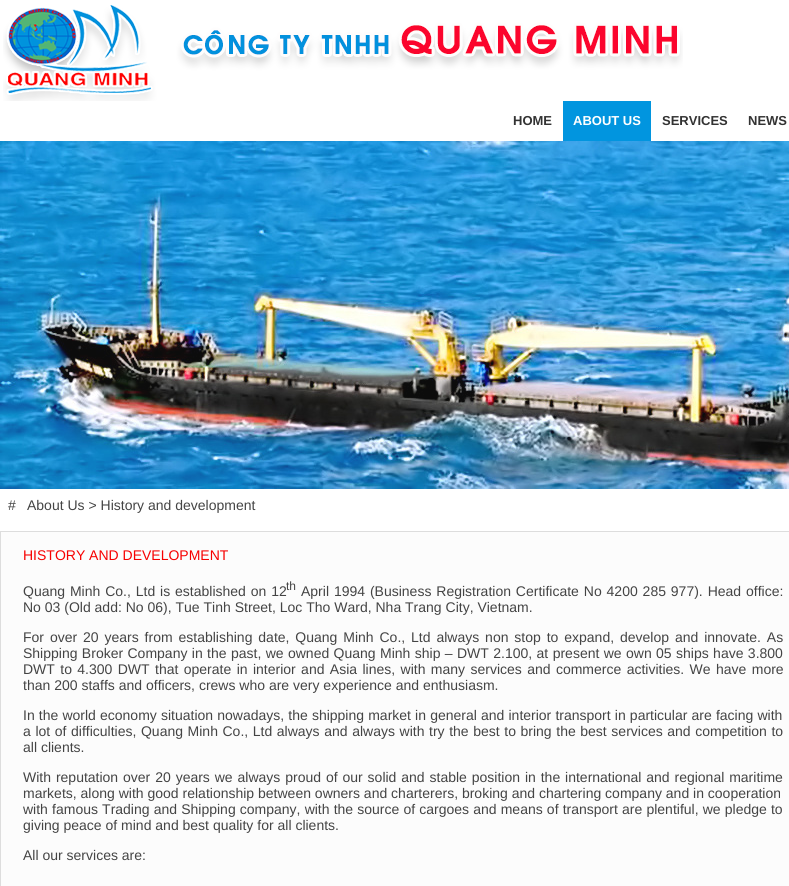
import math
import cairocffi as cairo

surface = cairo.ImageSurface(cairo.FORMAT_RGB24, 789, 886)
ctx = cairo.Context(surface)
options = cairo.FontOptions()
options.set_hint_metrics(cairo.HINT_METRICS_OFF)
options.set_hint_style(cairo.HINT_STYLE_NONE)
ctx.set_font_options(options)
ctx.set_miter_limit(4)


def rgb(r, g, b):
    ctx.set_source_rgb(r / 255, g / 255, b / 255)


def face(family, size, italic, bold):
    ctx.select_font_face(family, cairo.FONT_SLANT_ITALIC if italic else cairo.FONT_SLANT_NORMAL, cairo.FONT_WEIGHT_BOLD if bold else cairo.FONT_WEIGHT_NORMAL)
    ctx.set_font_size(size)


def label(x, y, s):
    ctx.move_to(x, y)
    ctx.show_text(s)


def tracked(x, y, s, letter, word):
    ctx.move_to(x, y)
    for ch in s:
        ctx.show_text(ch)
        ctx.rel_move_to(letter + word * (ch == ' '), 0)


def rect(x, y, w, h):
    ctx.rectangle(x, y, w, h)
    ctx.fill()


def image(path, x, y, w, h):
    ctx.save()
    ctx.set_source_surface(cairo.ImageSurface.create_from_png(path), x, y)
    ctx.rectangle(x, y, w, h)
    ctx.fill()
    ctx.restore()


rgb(255, 255, 255)
ctx.paint()
image('image0.png', 3, 5, 680, 96)
face('Liberation Sans', 13, 0, 1)
rgb(51, 51, 51)
label(513, 125, 'HOME')
rgb(1, 149, 223)
rect(563, 101, 88, 40)
rgb(255, 255, 255)
label(573, 125, 'ABOUT US')
rgb(51, 51, 51)
label(662, 125, 'SERVICES')
label(748, 125, 'NEWS')
image('image1.png', 0, 141, 789, 348)
face('Liberation Sans', 14, 0, 0)
rgb(68, 68, 68)
label(8, 510, '#')
label(27, 510, 'About Us > History and development')
rgb(252, 252, 252)
ctx.rectangle(0.5, 531.5, 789, 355)
ctx.fill_preserve()
rgb(221, 221, 221)
ctx.set_line_width(1)
ctx.stroke()
rgb(247, 0, 0)
label(23, 560, 'HISTORY AND DEVELOPMENT')
rgb(68, 68, 68)
tracked(23, 596, 'Quang Minh Co., Ltd is established on 12', 0, 1)
face('Liberation Sans', 12, 0, 0)
label(286, 590, 'th')
face('Liberation Sans', 14, 0, 0)
tracked(301, 596, 'April 1994 (Business Registration Certificate No 4200 285 977). Head office:', 0, 1)
label(23, 612, 'No 03 (Old add: No 06), Tue Tinh Street, Loc Tho Ward, Nha Trang City, Vietnam.')
tracked(23, 642, 'For over 20 years from establishing date, Quang Minh Co., Ltd always non stop to expand, develop and innovate. As', 0, 2)
tracked(23, 658, 'Shipping Broker Company in the past, we owned Quang Minh ship – DWT 2.100, at present we own 05 ships have 3.800', 0, 0.5)
tracked(23, 674, 'DWT to 4.300 DWT that operate in interior and Asia lines, with many services and commerce activities. We have more', 0, 1.5)
label(23, 690, 'than 200 staffs and officers, crews who are very experience and enthusiasm.')
tracked(23, 720, 'In the world economy situation nowadays, the shipping market in general and interior transport in particular are facing with', 0, 0.25)
tracked(23, 736, 'a lot of difficulties, Quang Minh Co., Ltd always and always with try the best to bring the best services and competition to', 0, 0.7)
label(23, 752, 'all clients.')
tracked(23, 782, 'With reputation over 20 years we always proud of our solid and stable position in the international and regional maritime', 0, 1)
label(23, 798, 'markets, along with good relationship between owners and charterers, broking and chartering company and in cooperation')
tracked(23, 814, 'with famous Trading and Shipping company, with the source of cargoes and means of transport are plentiful, we pledge to', 0, 0.25)
label(23, 830, 'giving peace of mind and best quality for all clients.')
label(23, 860, 'All our services are:')
surface.write_to_png('render.png')
